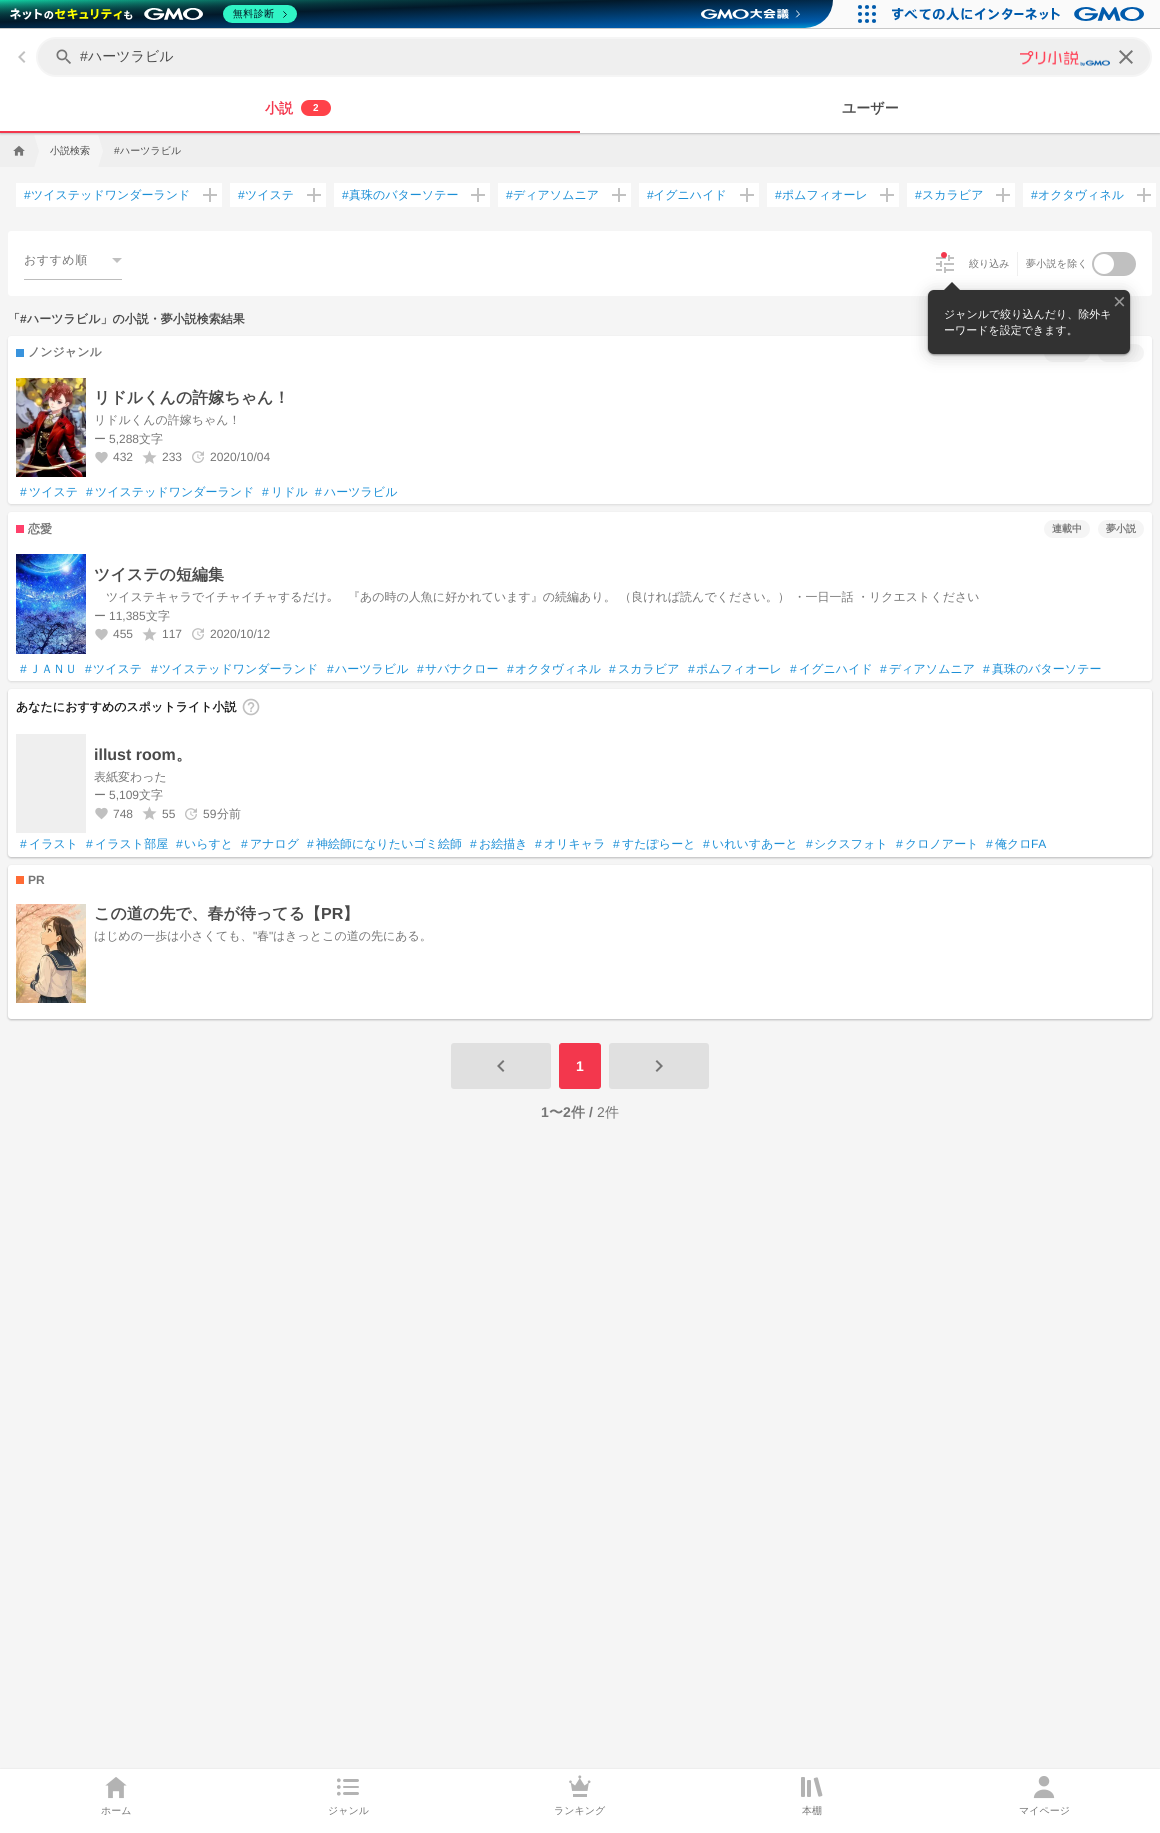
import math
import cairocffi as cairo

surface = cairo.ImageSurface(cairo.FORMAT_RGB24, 1160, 1833)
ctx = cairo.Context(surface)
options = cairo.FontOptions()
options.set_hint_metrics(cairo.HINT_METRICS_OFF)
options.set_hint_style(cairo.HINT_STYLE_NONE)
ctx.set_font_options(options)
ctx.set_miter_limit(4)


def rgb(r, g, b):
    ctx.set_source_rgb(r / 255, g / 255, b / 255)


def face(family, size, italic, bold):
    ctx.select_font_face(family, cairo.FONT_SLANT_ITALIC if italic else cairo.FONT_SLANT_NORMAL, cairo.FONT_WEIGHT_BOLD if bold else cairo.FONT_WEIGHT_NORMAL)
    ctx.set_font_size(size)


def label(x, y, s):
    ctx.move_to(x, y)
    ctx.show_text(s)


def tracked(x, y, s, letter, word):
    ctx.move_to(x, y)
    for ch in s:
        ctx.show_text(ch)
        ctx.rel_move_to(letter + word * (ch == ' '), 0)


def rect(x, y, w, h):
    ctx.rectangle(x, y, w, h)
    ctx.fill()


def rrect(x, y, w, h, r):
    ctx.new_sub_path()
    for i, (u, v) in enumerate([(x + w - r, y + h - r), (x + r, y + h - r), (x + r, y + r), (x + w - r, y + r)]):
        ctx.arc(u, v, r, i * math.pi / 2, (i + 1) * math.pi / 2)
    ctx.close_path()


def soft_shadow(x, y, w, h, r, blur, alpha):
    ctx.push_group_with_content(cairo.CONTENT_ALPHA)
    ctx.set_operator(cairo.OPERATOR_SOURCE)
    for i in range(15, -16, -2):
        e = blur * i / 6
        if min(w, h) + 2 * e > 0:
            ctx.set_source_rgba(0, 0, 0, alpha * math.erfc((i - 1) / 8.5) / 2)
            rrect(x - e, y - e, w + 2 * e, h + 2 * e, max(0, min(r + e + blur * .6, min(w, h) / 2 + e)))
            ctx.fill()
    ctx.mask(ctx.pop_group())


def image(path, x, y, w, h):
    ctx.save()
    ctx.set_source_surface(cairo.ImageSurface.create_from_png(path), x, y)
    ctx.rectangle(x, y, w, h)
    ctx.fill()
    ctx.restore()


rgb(245, 245, 245)
ctx.paint()
rgb(239, 239, 239)
rect(0, 135, 33, 32)
ctx.save()
ctx.rectangle(0, 135, 1160, 32)
ctx.clip()
ctx.new_path()
ctx.move_to(33, 171)
ctx.line_to(33, 131)
ctx.line_to(39, 151)
ctx.close_path()
ctx.fill()
ctx.restore()
rect(98, 135, 1062, 32)
ctx.save()
ctx.rectangle(0, 135, 1160, 32)
ctx.clip()
rgb(245, 245, 245)
ctx.new_path()
ctx.move_to(97, 171)
ctx.line_to(97, 131)
ctx.line_to(103, 151)
ctx.close_path()
ctx.fill()
ctx.restore()
rgb(32, 33, 36)
soft_shadow(0, 30, 1160, 104, 0, 1, 0.28)
rgb(255, 255, 255)
rect(0, 29, 1160, 104)
image('image0.png', 0, 0, 1160, 29)
image('image1.png', 18, 51, 8, 12)
rgb(239, 239, 239)
rrect(37, 38, 1114, 38, 19)
ctx.fill_preserve()
rgb(245, 245, 245)
ctx.stroke()
image('image2.png', 56, 49, 15, 15)
face('Liberation Sans', 14, 0, 0)
rgb(74, 74, 74)
label(80, 61, '#')
face('WenQuanYi Zen Hei Medium', 14, 0, 0)
label(88, 61, 'ハーツラビル')
image('image3.png', 1020, 51, 90, 15)
image('image4.png', 1119, 50, 14, 14)
rgb(243, 55, 77)
rect(0, 131, 580, 2)
face('WenQuanYi Zen Hei', 14, 0, 1)
label(265, 113, '小説')
rgb(255, 66, 73)
rrect(301, 100, 30, 16, 8)
ctx.fill()
face('Liberation Sans', 10, 0, 1)
rgb(255, 255, 255)
label(313, 111, '2')
face('WenQuanYi Zen Hei', 14, 0, 1)
rgb(74, 74, 74)
label(842, 113, 'ユーザー')
image('image5.png', 13, 145, 12, 11)
face('WenQuanYi Zen Hei Medium', 10, 0, 0)
label(50, 154, '小説検索')
face('Liberation Sans', 10, 0, 0)
label(114, 154, '#')
face('WenQuanYi Zen Hei Medium', 10, 0, 0)
label(120, 154, 'ハーツラビル')
rgb(255, 255, 255)
rect(16, 183, 206, 24)
face('Liberation Sans', 12, 0, 0)
rgb(26, 142, 214)
label(24, 199, '#')
face('WenQuanYi Zen Hei Medium', 12, 0, 0)
label(31, 199, 'ツイステッドワンダーランド')
image('image6.png', 203, 188, 14, 14)
rgb(255, 255, 255)
rect(230, 183, 96, 24)
face('Liberation Sans', 12, 0, 0)
rgb(26, 142, 214)
label(238, 199, '#')
face('WenQuanYi Zen Hei Medium', 12, 0, 0)
label(245, 199, 'ツイステ')
image('image6.png', 307, 188, 14, 14)
rgb(255, 255, 255)
rect(334, 183, 156, 24)
face('Liberation Sans', 12, 0, 0)
rgb(26, 142, 214)
label(342, 199, '#')
face('WenQuanYi Zen Hei Medium', 12, 0, 0)
label(349, 199, '真珠のバターソテー')
image('image6.png', 471, 188, 14, 14)
rgb(255, 255, 255)
rect(498, 183, 133, 24)
face('Liberation Sans', 12, 0, 0)
rgb(26, 142, 214)
label(506, 199, '#')
face('WenQuanYi Zen Hei Medium', 12, 0, 0)
label(513, 199, 'ディアソムニア')
image('image6.png', 612, 188, 14, 14)
rgb(255, 255, 255)
rect(639, 183, 120, 24)
face('Liberation Sans', 12, 0, 0)
rgb(26, 142, 214)
label(647, 199, '#')
face('WenQuanYi Zen Hei Medium', 12, 0, 0)
label(653, 199, 'イグニハイド')
image('image6.png', 740, 188, 14, 14)
rgb(255, 255, 255)
rect(767, 183, 132, 24)
face('Liberation Sans', 12, 0, 0)
rgb(26, 142, 214)
label(775, 199, '#')
face('WenQuanYi Zen Hei Medium', 12, 0, 0)
label(782, 199, 'ポムフィオーレ')
image('image6.png', 880, 188, 14, 14)
rgb(255, 255, 255)
rect(907, 183, 108, 24)
face('Liberation Sans', 12, 0, 0)
rgb(26, 142, 214)
label(915, 199, '#')
face('WenQuanYi Zen Hei Medium', 12, 0, 0)
label(922, 199, 'スカラビア')
image('image6.png', 996, 188, 14, 14)
rgb(255, 255, 255)
rect(1023, 183, 133, 24)
face('Liberation Sans', 12, 0, 0)
rgb(26, 142, 214)
label(1031, 199, '#')
face('WenQuanYi Zen Hei Medium', 12, 0, 0)
label(1038, 199, 'オクタヴィネル')
image('image6.png', 1137, 188, 14, 14)
rgb(255, 255, 255)
rrect(8, 231, 1144, 65, 3)
ctx.fill()
rgb(117, 117, 117)
tracked(24, 264, 'おすすめ順', 0.5, 0)
rgb(192, 192, 192)
ctx.new_path()
ctx.move_to(112, 258)
ctx.line_to(117, 263)
ctx.line_to(122, 258)
ctx.close_path()
ctx.fill()
rgb(189, 189, 189)
rect(24, 279, 98, 1)
image('image7.png', 936, 255, 18, 18)
rgb(243, 55, 77)
ctx.arc(944, 255, 3, 0, 2 * math.pi)
ctx.fill()
face('WenQuanYi Zen Hei Medium', 10, 0, 0)
rgb(117, 117, 117)
label(969, 267, '絞り込み')
rgb(239, 239, 239)
rect(1017, 252, 1, 24)
rgb(117, 117, 117)
tracked(1026, 267, '夢小説を除く', 0.25, 0)
rgb(192, 192, 192)
rrect(1092, 252, 44, 24, 12)
ctx.fill()
rgb(255, 255, 255)
ctx.arc(1104, 264, 10, 0, 2 * math.pi)
ctx.fill()
rgb(32, 33, 36)
soft_shadow(8, 337, 1144, 168, 3, 1, 0.13)
rgb(255, 255, 255)
rrect(8, 336, 1144, 168, 3)
ctx.fill()
rgb(245, 245, 245)
rrect(1044, 344, 46, 18, 9)
ctx.fill()
rrect(1098, 344, 46, 18, 9)
ctx.fill()
rgb(0, 0, 0)
soft_shadow(928, 292, 202, 64, 6, 8, 0.2)
soft_shadow(928, 291, 202, 64, 6, 1, 0.4)
rgb(50, 50, 50)
rrect(928, 290, 202, 64, 6)
ctx.fill()
ctx.new_path()
ctx.move_to(960, 290)
ctx.line_to(944, 290)
ctx.line_to(952, 282)
ctx.close_path()
ctx.fill()
face('Liberation Sans', 22, 0, 0)
rgb(153, 153, 153)
label(1113, 309, '×')
face('WenQuanYi Zen Hei Medium', 11, 0, 0)
rgb(255, 255, 255)
label(944, 318, 'ジャンルで絞り込んだり、除外キ')
label(944, 334, 'ーワードを設定できます。')
face('WenQuanYi Zen Hei', 12, 0, 1)
rgb(74, 74, 74)
label(8, 323, '「')
face('Liberation Sans', 12, 0, 1)
label(20, 323, '#')
face('WenQuanYi Zen Hei', 12, 0, 1)
label(27, 323, 'ハーツラビル」の小説・夢小説検索結果')
rgb(57, 147, 221)
rect(16, 349, 8, 8)
rgb(117, 117, 117)
label(28, 356, 'ノンジャンル')
image('image8.png', 16, 378, 70, 99)
face('WenQuanYi Zen Hei', 16, 0, 1)
rgb(74, 74, 74)
label(94, 403, 'リドルくんの許嫁ちゃん！')
face('WenQuanYi Zen Hei Medium', 12, 0, 0)
rgb(117, 117, 117)
label(94, 424, 'リドルくんの許嫁ちゃん！')
label(94, 443, 'ー')
face('Liberation Sans', 12, 0, 0)
label(109, 443, '5,288')
face('WenQuanYi Zen Hei Medium', 12, 0, 0)
label(139, 443, '文字')
image('image9.png', 95, 451, 13, 13)
face('Liberation Sans', 12, 0, 0)
label(113, 461, '432')
image('image10.png', 142, 450, 15, 14)
label(162, 461, '233')
image('image11.png', 192, 451, 12, 12)
label(210, 461, '2020/10/04')
rgb(26, 142, 214)
label(20, 496, '#')
face('WenQuanYi Zen Hei Medium', 12, 0, 0)
label(29, 496, 'ツイステ')
face('Liberation Sans', 12, 0, 0)
label(86, 496, '#')
face('WenQuanYi Zen Hei Medium', 12, 0, 0)
label(95, 496, 'ツイステッドワンダーランド')
face('Liberation Sans', 12, 0, 0)
label(262, 496, '#')
face('WenQuanYi Zen Hei Medium', 12, 0, 0)
label(271, 496, 'リドル')
face('Liberation Sans', 12, 0, 0)
label(315, 496, '#')
face('WenQuanYi Zen Hei Medium', 12, 0, 0)
label(324, 496, 'ハーツラビル')
rgb(32, 33, 36)
soft_shadow(8, 513, 1144, 169, 3, 1, 0.13)
rgb(255, 255, 255)
rrect(8, 512, 1144, 169, 3)
ctx.fill()
rgb(255, 64, 107)
rect(16, 525, 8, 8)
face('WenQuanYi Zen Hei', 12, 0, 1)
rgb(117, 117, 117)
label(28, 533, '恋愛')
rgb(245, 245, 245)
rrect(1044, 520, 46, 18, 9)
ctx.fill()
face('WenQuanYi Zen Hei', 10, 0, 1)
rgb(117, 117, 117)
label(1052, 532, '連載中')
rgb(245, 245, 245)
rrect(1098, 520, 46, 18, 9)
ctx.fill()
rgb(117, 117, 117)
label(1106, 532, '夢小説')
image('image12.png', 16, 554, 70, 100)
face('WenQuanYi Zen Hei', 16, 0, 1)
rgb(74, 74, 74)
label(94, 580, 'ツイステの短編集')
face('WenQuanYi Zen Hei Medium', 12, 0, 0)
rgb(117, 117, 117)
label(106, 601, 'ツイステキャラでイチャイチャするだけ')
face('IPAPGothic', 12, 0, 0)
label(327, 601, '｡')
face('WenQuanYi Zen Hei Medium', 12, 0, 0)
label(348, 601, '『あの時の人魚に好かれています』の続編あり。 （良ければ読んでください。） ・一日一話 ・リクエストください')
label(94, 620, 'ー')
face('Liberation Sans', 12, 0, 0)
label(109, 620, '11,385')
face('WenQuanYi Zen Hei Medium', 12, 0, 0)
label(146, 620, '文字')
image('image9.png', 95, 628, 13, 13)
face('Liberation Sans', 12, 0, 0)
label(113, 638, '455')
image('image10.png', 142, 627, 15, 14)
label(162, 638, '117')
image('image11.png', 192, 628, 12, 12)
label(210, 638, '2020/10/12')
rgb(26, 142, 214)
label(20, 673, '#')
face('WenQuanYi Zen Hei Medium', 12, 0, 0)
label(29, 673, 'ＪＡＮＵ')
face('Liberation Sans', 12, 0, 0)
label(85, 673, '#')
face('WenQuanYi Zen Hei Medium', 12, 0, 0)
label(93, 673, 'ツイステ')
face('Liberation Sans', 12, 0, 0)
label(151, 673, '#')
face('WenQuanYi Zen Hei Medium', 12, 0, 0)
label(159, 673, 'ツイステッドワンダーランド')
face('Liberation Sans', 12, 0, 0)
label(327, 673, '#')
face('WenQuanYi Zen Hei Medium', 12, 0, 0)
label(335, 673, 'ハーツラビル')
face('Liberation Sans', 12, 0, 0)
label(417, 673, '#')
face('WenQuanYi Zen Hei Medium', 12, 0, 0)
label(425, 673, 'サバナクロー')
face('Liberation Sans', 12, 0, 0)
label(507, 673, '#')
face('WenQuanYi Zen Hei Medium', 12, 0, 0)
label(515, 673, 'オクタヴィネル')
face('Liberation Sans', 12, 0, 0)
label(609, 673, '#')
face('WenQuanYi Zen Hei Medium', 12, 0, 0)
label(618, 673, 'スカラビア')
face('Liberation Sans', 12, 0, 0)
label(688, 673, '#')
face('WenQuanYi Zen Hei Medium', 12, 0, 0)
label(696, 673, 'ポムフィオーレ')
face('Liberation Sans', 12, 0, 0)
label(790, 673, '#')
face('WenQuanYi Zen Hei Medium', 12, 0, 0)
label(799, 673, 'イグニハイド')
face('Liberation Sans', 12, 0, 0)
label(880, 673, '#')
face('WenQuanYi Zen Hei Medium', 12, 0, 0)
label(889, 673, 'ディアソムニア')
face('Liberation Sans', 12, 0, 0)
label(983, 673, '#')
face('WenQuanYi Zen Hei Medium', 12, 0, 0)
label(992, 673, '真珠のバターソテー')
rgb(32, 33, 36)
soft_shadow(8, 690, 1144, 168, 3, 1, 0.28)
rgb(255, 255, 255)
rrect(8, 689, 1144, 168, 3)
ctx.fill()
face('WenQuanYi Zen Hei', 12, 0, 1)
rgb(29, 29, 29)
label(16, 711, 'あなたにおすすめのスポットライト小説')
image('image13.png', 242, 698, 18, 18)
rgb(239, 239, 239)
rect(16, 734, 70, 99)
face('Liberation Sans', 16, 0, 1)
rgb(74, 74, 74)
label(94, 760, 'illust room')
face('WenQuanYi Zen Hei', 16, 0, 1)
label(176, 760, '。')
face('WenQuanYi Zen Hei Medium', 12, 0, 0)
rgb(117, 117, 117)
label(94, 781, '表紙変わった')
label(94, 799, 'ー')
face('Liberation Sans', 12, 0, 0)
label(109, 799, '5,109')
face('WenQuanYi Zen Hei Medium', 12, 0, 0)
label(139, 799, '文字')
image('image9.png', 95, 807, 13, 13)
face('Liberation Sans', 12, 0, 0)
label(113, 818, '748')
image('image10.png', 142, 806, 15, 14)
label(162, 818, '55')
image('image11.png', 185, 808, 12, 12)
label(203, 818, '59')
face('WenQuanYi Zen Hei Medium', 12, 0, 0)
label(217, 818, '分前')
face('Liberation Sans', 12, 0, 0)
rgb(26, 142, 214)
label(20, 848, '#')
face('WenQuanYi Zen Hei Medium', 12, 0, 0)
label(29, 848, 'イラスト')
face('Liberation Sans', 12, 0, 0)
label(86, 848, '#')
face('WenQuanYi Zen Hei Medium', 12, 0, 0)
label(95, 848, 'イラスト部屋')
face('Liberation Sans', 12, 0, 0)
label(176, 848, '#')
face('WenQuanYi Zen Hei Medium', 12, 0, 0)
label(184, 848, 'いらすと')
face('Liberation Sans', 12, 0, 0)
label(241, 848, '#')
face('WenQuanYi Zen Hei Medium', 12, 0, 0)
label(250, 848, 'アナログ')
face('Liberation Sans', 12, 0, 0)
label(307, 848, '#')
face('WenQuanYi Zen Hei Medium', 12, 0, 0)
label(316, 848, '神絵師になりたいゴミ絵師')
face('Liberation Sans', 12, 0, 0)
label(470, 848, '#')
face('WenQuanYi Zen Hei Medium', 12, 0, 0)
label(479, 848, 'お絵描き')
face('Liberation Sans', 12, 0, 0)
label(535, 848, '#')
face('WenQuanYi Zen Hei Medium', 12, 0, 0)
label(544, 848, 'オリキャラ')
face('Liberation Sans', 12, 0, 0)
label(613, 848, '#')
face('WenQuanYi Zen Hei Medium', 12, 0, 0)
label(622, 848, 'すたぽらーと')
face('Liberation Sans', 12, 0, 0)
label(703, 848, '#')
face('WenQuanYi Zen Hei Medium', 12, 0, 0)
label(712, 848, 'いれいすあーと')
face('Liberation Sans', 12, 0, 0)
label(806, 848, '#')
face('WenQuanYi Zen Hei Medium', 12, 0, 0)
label(814, 848, 'シクスフォト')
face('Liberation Sans', 12, 0, 0)
label(896, 848, '#')
face('WenQuanYi Zen Hei Medium', 12, 0, 0)
label(905, 848, 'クロノアート')
face('Liberation Sans', 12, 0, 0)
label(986, 848, '#')
face('WenQuanYi Zen Hei Medium', 12, 0, 0)
label(995, 848, '俺クロ')
face('Liberation Sans', 12, 0, 0)
label(1031, 848, 'FA')
rgb(32, 33, 36)
soft_shadow(8, 866, 1144, 154, 3, 1, 0.28)
rgb(255, 255, 255)
rrect(8, 865, 1144, 154, 3)
ctx.fill()
rgb(255, 107, 53)
rect(16, 876, 8, 8)
face('Liberation Sans', 12, 0, 1)
rgb(117, 117, 117)
label(28, 884, 'PR')
image('image14.png', 16, 904, 70, 99)
face('WenQuanYi Zen Hei', 16, 0, 1)
rgb(74, 74, 74)
label(94, 919, 'この道の先で、春が待ってる【')
face('Liberation Sans', 16, 0, 1)
label(321, 919, 'PR')
face('WenQuanYi Zen Hei', 16, 0, 1)
label(343, 919, '】')
face('WenQuanYi Zen Hei Medium', 12, 0, 0)
rgb(117, 117, 117)
label(94, 940, 'はじめの一歩は小さくても、')
face('Liberation Sans', 12, 0, 0)
label(253, 940, '"')
face('WenQuanYi Zen Hei Medium', 12, 0, 0)
label(257, 940, '春')
face('Liberation Sans', 12, 0, 0)
label(269, 940, '"')
face('WenQuanYi Zen Hei Medium', 12, 0, 0)
label(273, 940, 'はきっとこの道の先にある。')
rgb(224, 224, 224)
rrect(451, 1043, 100, 46, 3)
ctx.fill()
image('image15.png', 497, 1060, 8, 12)
rgb(243, 55, 77)
rrect(559.5, 1043.5, 41, 45, 2.5)
ctx.fill_preserve()
ctx.set_line_width(1)
ctx.stroke()
face('Liberation Sans', 14, 0, 1)
rgb(255, 255, 255)
label(576, 1071, '1')
rgb(224, 224, 224)
rrect(609, 1043, 100, 46, 3)
ctx.fill()
image('image16.png', 655, 1060, 8, 12)
rgb(117, 117, 117)
label(541, 1117, '1')
face('WenQuanYi Zen Hei', 14, 0, 1)
label(549, 1117, '〜')
face('Liberation Sans', 14, 0, 1)
label(563, 1117, '2')
face('WenQuanYi Zen Hei', 14, 0, 1)
label(571, 1117, '件')
face('Liberation Sans', 14, 0, 1)
label(589, 1117, '/')
face('Liberation Sans', 14, 0, 0)
label(597, 1117, '2')
face('WenQuanYi Zen Hei Medium', 14, 0, 0)
label(605, 1117, '件')
rgb(6, 6, 6)
soft_shadow(0, 1769, 1160, 64, 0, 1, 0.08)
rgb(255, 255, 255)
rect(0, 1769, 1160, 64)
image('image17.png', 105, 1777, 22, 22)
face('WenQuanYi Zen Hei Medium', 10, 0, 0)
rgb(117, 117, 117)
label(101, 1814, 'ホーム')
image('image18.png', 337, 1778, 22, 18)
label(328, 1814, 'ジャンル')
image('image19.png', 569, 1775, 22, 22)
label(554, 1814, 'ランキング')
image('image20.png', 801, 1777, 22, 20)
label(802, 1814, '本棚')
image('image21.png', 1033, 1776, 22, 23)
label(1019, 1814, 'マイページ')
surface.write_to_png('render.png')
